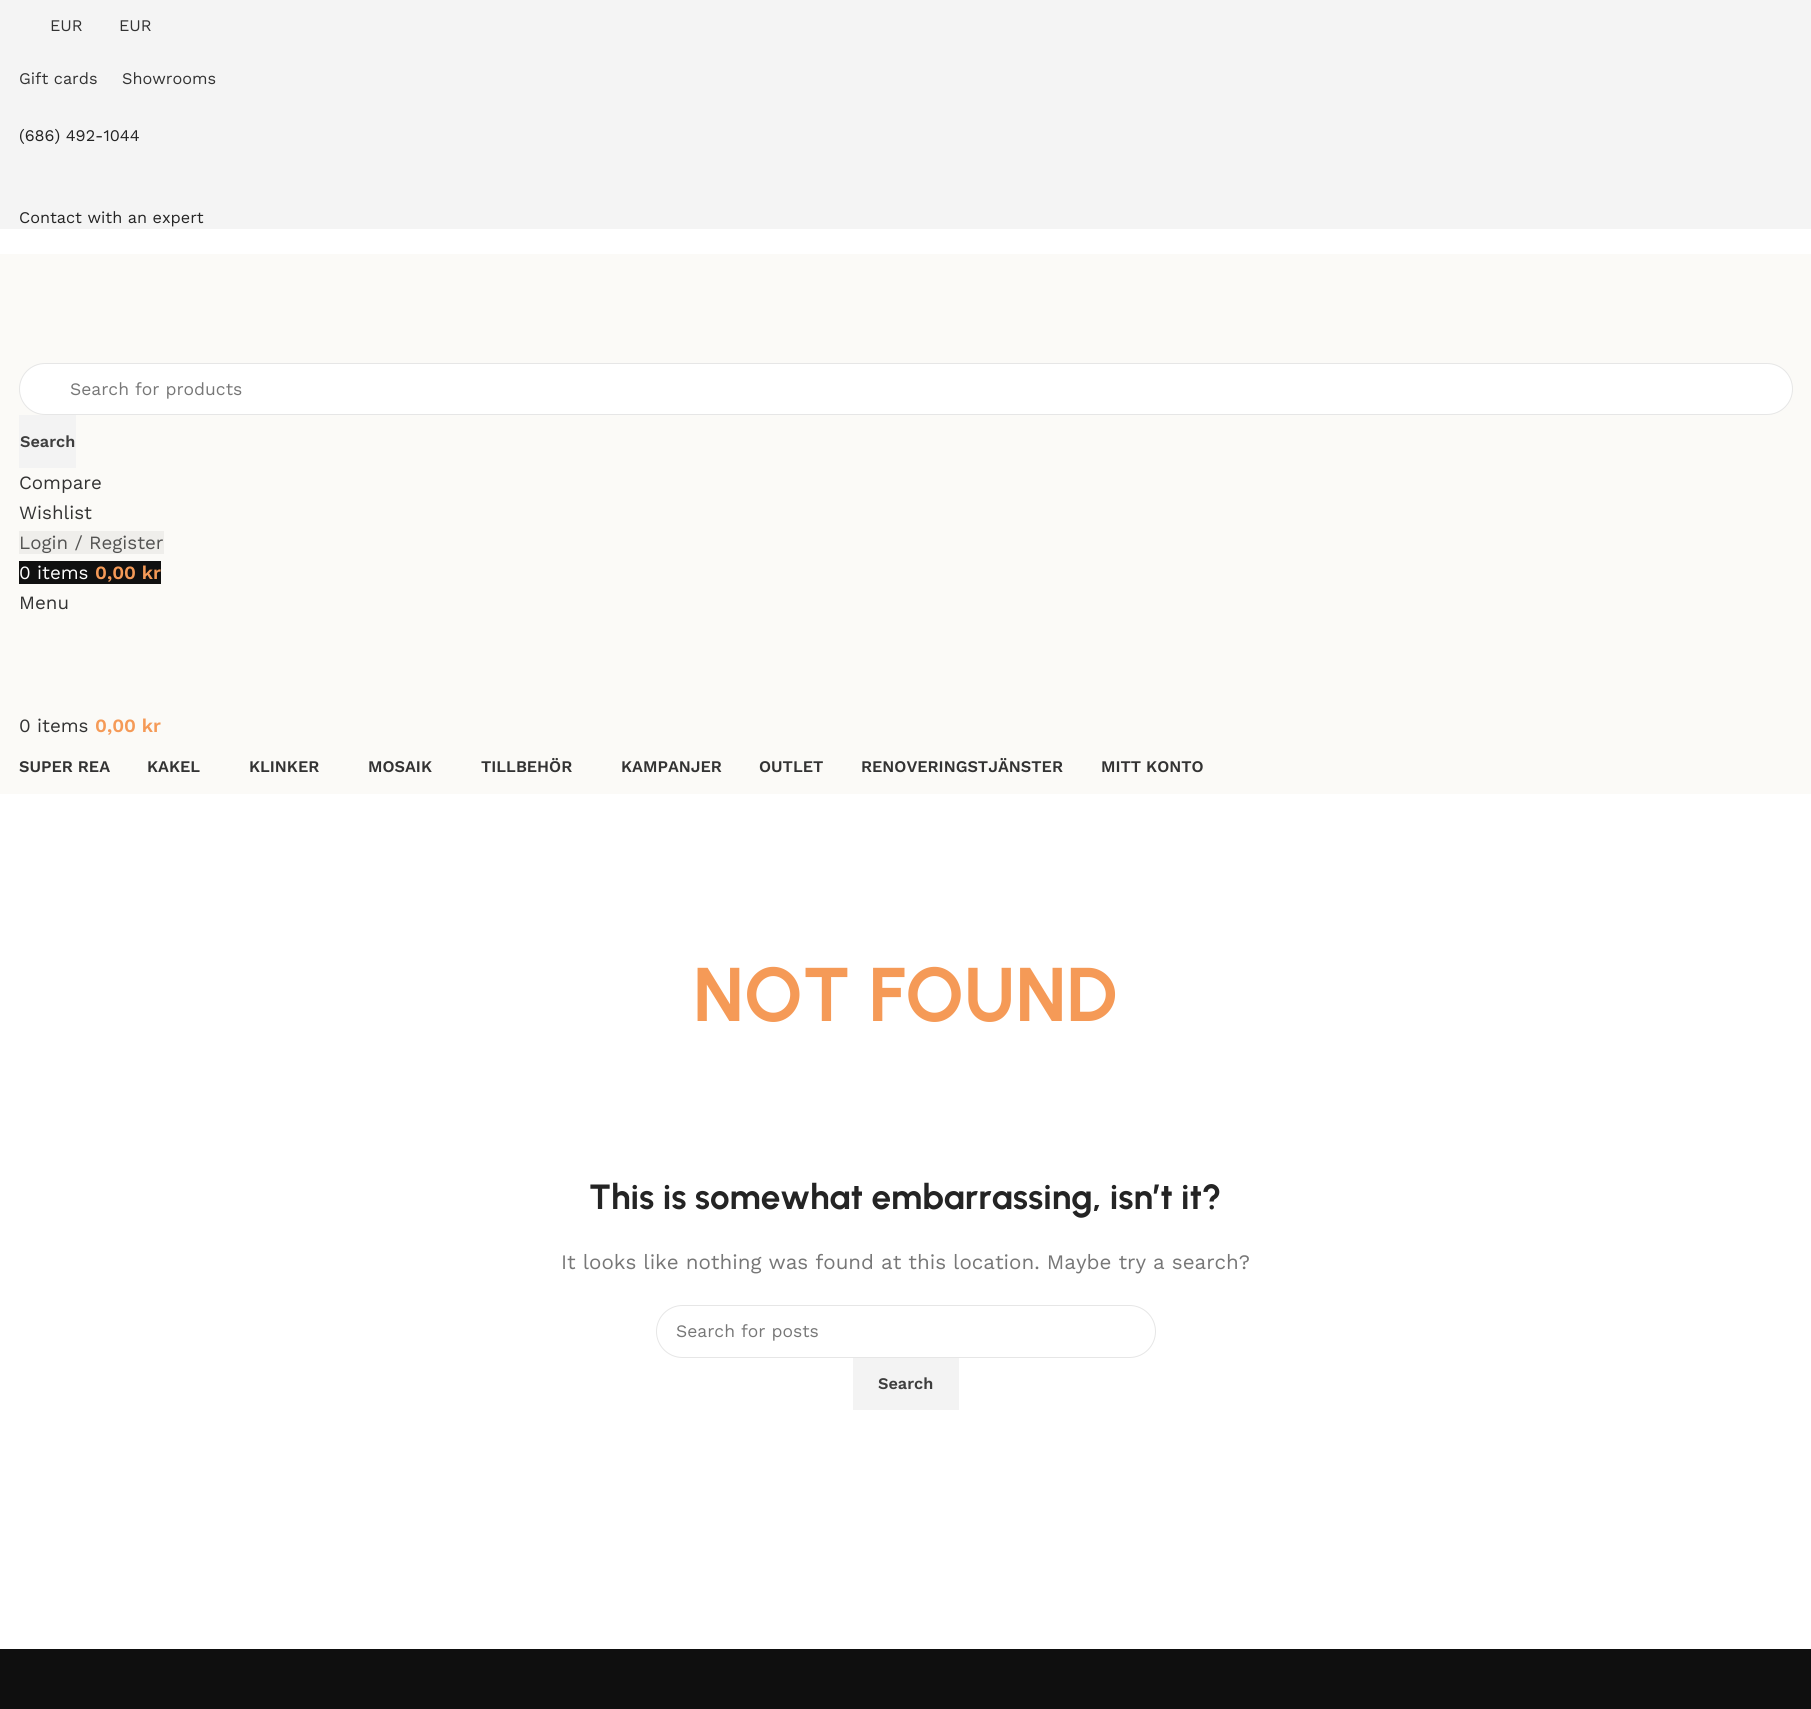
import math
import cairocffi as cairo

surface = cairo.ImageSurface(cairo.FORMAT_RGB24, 1811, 1709)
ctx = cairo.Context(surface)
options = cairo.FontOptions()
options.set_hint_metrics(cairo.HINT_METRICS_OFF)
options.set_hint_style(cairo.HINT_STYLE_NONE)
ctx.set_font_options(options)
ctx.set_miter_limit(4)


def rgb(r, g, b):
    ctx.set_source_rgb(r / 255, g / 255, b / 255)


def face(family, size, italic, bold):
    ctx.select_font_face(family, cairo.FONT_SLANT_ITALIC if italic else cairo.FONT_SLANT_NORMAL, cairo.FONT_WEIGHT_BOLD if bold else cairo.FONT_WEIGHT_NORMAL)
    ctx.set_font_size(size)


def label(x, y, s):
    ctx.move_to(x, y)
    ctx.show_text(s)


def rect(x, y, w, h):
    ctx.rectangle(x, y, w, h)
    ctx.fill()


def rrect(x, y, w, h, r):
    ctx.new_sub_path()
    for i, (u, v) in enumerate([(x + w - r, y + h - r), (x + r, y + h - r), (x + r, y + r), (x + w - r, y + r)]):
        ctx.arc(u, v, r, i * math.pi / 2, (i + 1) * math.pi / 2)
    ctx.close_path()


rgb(255, 255, 255)
ctx.paint()
rgb(244, 244, 244)
rect(0, 0, 1811, 229)
face('Work Sans', 16.25, 0, 0)
rgb(51, 51, 51)
label(50, 31, 'EUR')
label(119, 31, 'EUR')
label(19, 84, 'Gift cards')
label(122, 84, 'Showrooms')
rgb(36, 36, 36)
label(19, 141, '(686) 492-1044')
label(19, 223, 'Contact with an expert')
rgb(251, 250, 247)
rect(0, 254, 1811, 540)
rgb(255, 255, 255)
rrect(19, 363, 1774, 52, 26)
ctx.fill()
rrect(19.5, 363.5, 1773, 51, 25.5)
ctx.set_source_rgba(0, 0, 0, 0.1)
ctx.set_line_width(1)
ctx.stroke()
face('Work Sans', 17.5, 0, 0)
rgb(119, 119, 119)
label(70, 395, 'Search for products')
rgb(243, 243, 243)
rect(19, 415, 57, 53)
face('Work Sans SemiBold', 16.25, 0, 0)
rgb(62, 62, 62)
label(20, 447, 'Search')
face('Work Sans', 18.75, 0, 0)
rgb(51, 51, 51)
label(19, 489, 'Compare')
label(19, 519, 'Wishlist')
rgb(239, 238, 235)
rect(19, 531, 145, 23)
rgb(83, 83, 82)
label(19, 549, 'Login / Register')
rgb(16, 16, 16)
rect(19, 561, 142, 23)
rgb(255, 255, 255)
label(19, 579, '0 items')
face('Work Sans SemiBold', 18.75, 0, 0)
rgb(245, 154, 87)
label(95, 579, '0,00 kr')
face('Work Sans', 18.75, 0, 0)
rgb(51, 51, 51)
label(19, 609, 'Menu')
label(19, 732, '0 items')
face('Work Sans SemiBold', 18.75, 0, 0)
rgb(245, 154, 87)
label(95, 732, '0,00 kr')
face('Work Sans SemiBold', 16.25, 0, 0)
rgb(51, 51, 51)
label(19, 772, 'SUPER REA')
label(147, 772, 'KAKEL')
label(249, 772, 'KLINKER')
label(368, 772, 'MOSAIK')
label(481, 772, 'TILLBEHÖR')
label(621, 772, 'KAMPANJER')
label(759, 772, 'OUTLET')
label(861, 772, 'RENOVERINGSTJÄNSTER')
label(1101, 772, 'MITT KONTO')
face('Urbanist', 76, 0, 1)
rgb(245, 154, 87)
label(693, 1021, 'NOT FOUND')
face('Urbanist', 35, 0, 1)
rgb(36, 36, 36)
label(589, 1209, 'This is somewhat embarrassing, isn’t it?')
face('Work Sans', 20.6, 0, 0)
rgb(119, 119, 119)
label(561, 1269, 'It looks like nothing was found at this location. Maybe try a search?')
rrect(656.5, 1305.5, 499, 52, 26)
rgb(230, 230, 230)
ctx.stroke()
face('Work Sans', 17.5, 0, 0)
rgb(119, 119, 119)
label(676, 1337, 'Search for posts')
rgb(243, 243, 243)
rect(853, 1358, 106, 52)
face('Work Sans SemiBold', 16.25, 0, 0)
rgb(62, 62, 62)
label(878, 1389, 'Search')
rgb(15, 15, 15)
rect(0, 1649, 1811, 60)
surface.write_to_png('render.png')
